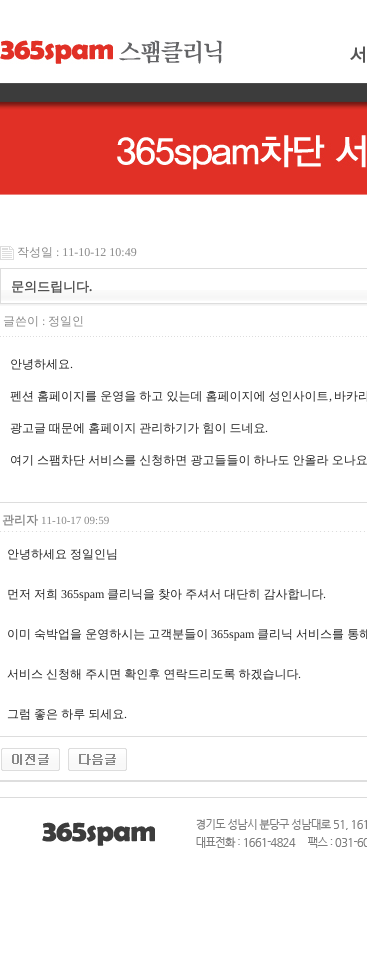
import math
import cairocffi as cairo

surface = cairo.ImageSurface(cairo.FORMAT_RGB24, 367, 964)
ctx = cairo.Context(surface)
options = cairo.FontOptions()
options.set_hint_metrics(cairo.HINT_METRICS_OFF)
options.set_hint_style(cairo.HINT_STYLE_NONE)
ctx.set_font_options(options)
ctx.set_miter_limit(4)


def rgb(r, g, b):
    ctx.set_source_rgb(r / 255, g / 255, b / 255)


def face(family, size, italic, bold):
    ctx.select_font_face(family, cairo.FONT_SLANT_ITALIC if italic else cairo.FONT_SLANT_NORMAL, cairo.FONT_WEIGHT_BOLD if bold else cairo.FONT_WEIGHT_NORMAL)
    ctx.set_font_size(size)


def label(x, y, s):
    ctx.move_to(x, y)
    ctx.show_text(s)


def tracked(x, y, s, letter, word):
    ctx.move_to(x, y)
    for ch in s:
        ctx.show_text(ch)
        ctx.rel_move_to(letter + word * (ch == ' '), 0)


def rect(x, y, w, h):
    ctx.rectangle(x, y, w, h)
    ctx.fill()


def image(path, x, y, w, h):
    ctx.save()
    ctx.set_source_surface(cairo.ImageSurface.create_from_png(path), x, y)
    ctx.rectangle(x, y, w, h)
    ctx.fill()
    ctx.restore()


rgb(255, 255, 255)
ctx.paint()
image('image0.png', 0, 40, 113, 24)
image('image1.png', 119, 40, 103, 24)
image('image2.png', 350, 46, 15, 17)
image('image3.png', 0, 83, 367, 112)
image('image4.png', 117, 135, 250, 35)
image('image5.png', 0, 246, 14, 14)
face('WenQuanYi Zen Hei Medium', 12, 0, 0)
rgb(136, 136, 136)
label(17, 256, '작성일')
face('Liberation Serif', 12, 0, 0)
label(56, 256, ': 11-10-12 10:49')
image('image6.png', 1, 290, 366, 11)
ctx.rectangle(0.5, 268.5, 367, 35)
rgb(221, 221, 221)
ctx.set_line_width(1)
ctx.stroke()
face('WenQuanYi Zen Hei', 13, 0, 1)
rgb(80, 80, 80)
label(11, 291, '문의드립니다')
face('Liberation Serif', 13, 0, 1)
label(89, 291, '.')
image('image7.png', 0, 304, 367, 2)
image('image8.png', 0, 336, 367, 1)
face('WenQuanYi Zen Hei Medium', 12, 0, 0)
rgb(136, 136, 136)
label(3, 325, '글쓴이')
face('Liberation Serif', 12, 0, 0)
label(42, 325, ':')
face('WenQuanYi Zen Hei Medium', 12, 0, 0)
label(48, 325, '정일인')
rgb(34, 34, 34)
label(10, 368, '안녕하세요')
face('Liberation Serif', 12, 0, 0)
label(70, 368, '.')
face('WenQuanYi Zen Hei Medium', 12, 0, 0)
tracked(10, 400, '펜션 홈페이지를 운영을 하고 있는데 홈페이지에 성인사이트', 0, -0.5)
face('Liberation Serif', 12, 0, 0)
label(329, 400, ',')
face('WenQuanYi Zen Hei Medium', 12, 0, 0)
label(334, 400, '바카라')
tracked(10, 432, '광고글 때문에 홈페이지 관리하기가 힘이 드네요', 0, -0.5)
face('Liberation Serif', 12, 0, 0)
label(265, 432, '.')
face('WenQuanYi Zen Hei Medium', 12, 0, 0)
tracked(10, 464, '여기 스팸차단 서비스를 신청하면 광고들들이 하나도 안올라 오나요', 0, -0.5)
rgb(221, 221, 221)
rect(0, 502, 367, 1)
image('image9.png', 0, 531, 365, 1)
face('WenQuanYi Zen Hei', 12, 0, 1)
rgb(136, 136, 136)
label(2, 524, '관리자')
face('Liberation Serif', 11, 0, 0)
label(41, 524, '11-10-17 09:59')
face('WenQuanYi Zen Hei Medium', 12, 0, 0)
rgb(34, 34, 34)
tracked(7, 558, '안녕하세요 정일인님', 0, -0.5)
tracked(7, 598, '먼저 저희', 0, -0.5)
face('Liberation Serif', 12, 0, 0)
label(61, 598, '365spam')
face('WenQuanYi Zen Hei Medium', 12, 0, 0)
tracked(107, 598, '클리닉을 찾아 주셔서 대단히 감사합니다', 0, -0.5)
face('Liberation Serif', 12, 0, 0)
label(323, 598, '.')
face('WenQuanYi Zen Hei Medium', 12, 0, 0)
tracked(7, 638, '이미 숙박업을 운영하시는 고객분들이', 0, -0.5)
face('Liberation Serif', 12, 0, 0)
label(211, 638, '365spam')
face('WenQuanYi Zen Hei Medium', 12, 0, 0)
tracked(257, 638, '클리닉 서비스를 통해', 0, -0.5)
tracked(7, 678, '서비스 신청해 주시면 확인후 연락드리도록 하겠습니다', 0, -0.5)
face('Liberation Serif', 12, 0, 0)
label(298, 678, '.')
face('WenQuanYi Zen Hei Medium', 12, 0, 0)
tracked(7, 718, '그럼 좋은 하루 되세요', 0, -0.5)
face('Liberation Serif', 12, 0, 0)
label(124, 718, '.')
rgb(221, 221, 221)
rect(0, 736, 367, 1)
image('image10.png', 1, 748, 59, 23)
image('image11.png', 68, 748, 59, 23)
rgb(222, 222, 222)
rect(0, 780, 367, 2)
image('image12.png', 0, 797, 367, 51)
surface.write_to_png('render.png')
